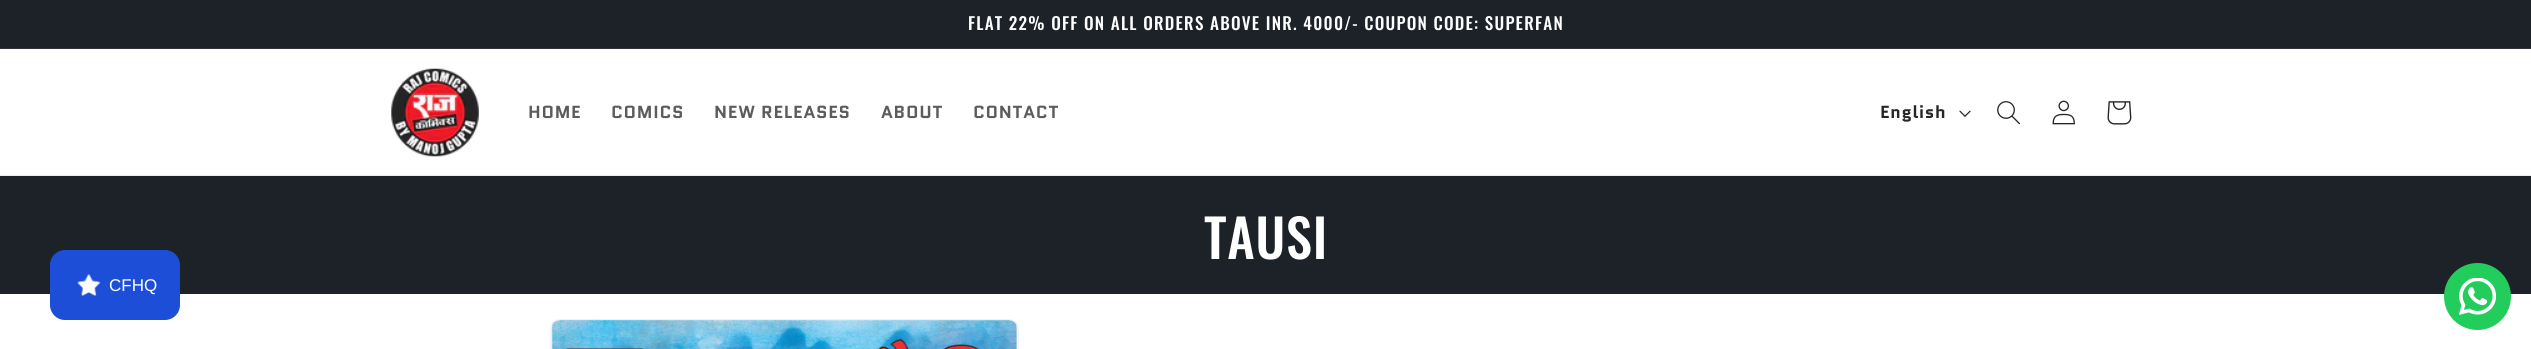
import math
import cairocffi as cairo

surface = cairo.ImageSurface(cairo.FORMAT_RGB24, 2531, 349)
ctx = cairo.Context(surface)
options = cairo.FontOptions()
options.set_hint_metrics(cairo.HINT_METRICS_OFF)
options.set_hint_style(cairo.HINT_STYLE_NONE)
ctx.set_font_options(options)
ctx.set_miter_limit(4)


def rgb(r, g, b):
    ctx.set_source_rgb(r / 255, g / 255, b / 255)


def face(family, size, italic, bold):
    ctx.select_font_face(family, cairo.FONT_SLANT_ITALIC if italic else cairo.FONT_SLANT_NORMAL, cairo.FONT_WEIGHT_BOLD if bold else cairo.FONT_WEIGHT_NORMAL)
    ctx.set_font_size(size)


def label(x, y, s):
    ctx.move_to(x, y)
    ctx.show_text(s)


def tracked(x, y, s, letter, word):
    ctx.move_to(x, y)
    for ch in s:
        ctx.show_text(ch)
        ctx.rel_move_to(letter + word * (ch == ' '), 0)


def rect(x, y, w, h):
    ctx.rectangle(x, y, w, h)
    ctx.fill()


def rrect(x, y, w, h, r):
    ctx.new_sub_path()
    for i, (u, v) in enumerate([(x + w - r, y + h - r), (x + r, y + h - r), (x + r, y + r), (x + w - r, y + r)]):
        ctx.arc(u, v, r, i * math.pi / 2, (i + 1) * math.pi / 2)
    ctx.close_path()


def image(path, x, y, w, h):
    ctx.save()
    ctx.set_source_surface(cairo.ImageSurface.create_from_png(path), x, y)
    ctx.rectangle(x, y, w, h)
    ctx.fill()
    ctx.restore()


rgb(255, 255, 255)
ctx.paint()
rgb(28, 34, 40)
rect(0, 0, 2531, 48)
rgb(46, 52, 57)
rect(0, 48, 2531, 1)
face('Oswald Medium', 17.05, 0, 0)
rgb(255, 255, 255)
tracked(968, 30, 'FLAT 22% OFF ON ALL ORDERS ABOVE INR. 4000/- COUPON CODE: SUPERFAN', 1.25, 0)
rgb(238, 238, 238)
rect(0, 175, 2531, 1)
image('image0.png', 391, 68, 88, 89)
face('Quantico', 17.5, 0, 1)
rgb(92, 92, 92)
tracked(528, 118, 'HOME', 0.75, 0)
tracked(611, 118, 'COMICS', 0.75, 0)
tracked(714, 118, 'NEW RELEASES', 0.75, 0)
tracked(881, 118, 'ABOUT', 0.75, 0)
tracked(973, 118, 'CONTACT', 0.75, 0)
rgb(38, 38, 38)
tracked(1880, 118, 'English', 0.75, 0)
image('image1.png', 1959, 110, 12, 7)
image('image2.png', 1997, 101, 23, 24)
image('image3.png', 2052, 100, 23, 25)
image('image4.png', 2107, 101, 25, 24)
rgb(28, 34, 40)
rect(0, 176, 2531, 118)
face('Oswald Medium', 52.5, 0, 0)
rgb(255, 255, 255)
tracked(1204, 259, 'TAUSI', 0.75, 0)
rrect(550.5, 319.5, 468, 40, 9.5)
rgb(242, 242, 242)
ctx.set_line_width(1)
ctx.stroke()
image('image5.png', 551, 320, 467, 29)
rgb(29, 78, 216)
rrect(50, 250, 130, 70, 15)
ctx.fill()
image('image6.png', 77, 274, 24, 22)
face('Liberation Sans', 17, 0, 0)
rgb(255, 255, 255)
label(109, 291, 'CFHQ')
rgb(34, 205, 91)
ctx.new_path()
ctx.arc(2477.5, 296.5, 33.5, 0, 2 * math.pi)
ctx.fill()
image('image7.png', 2459, 278, 37, 37)
surface.write_to_png('render.png')
